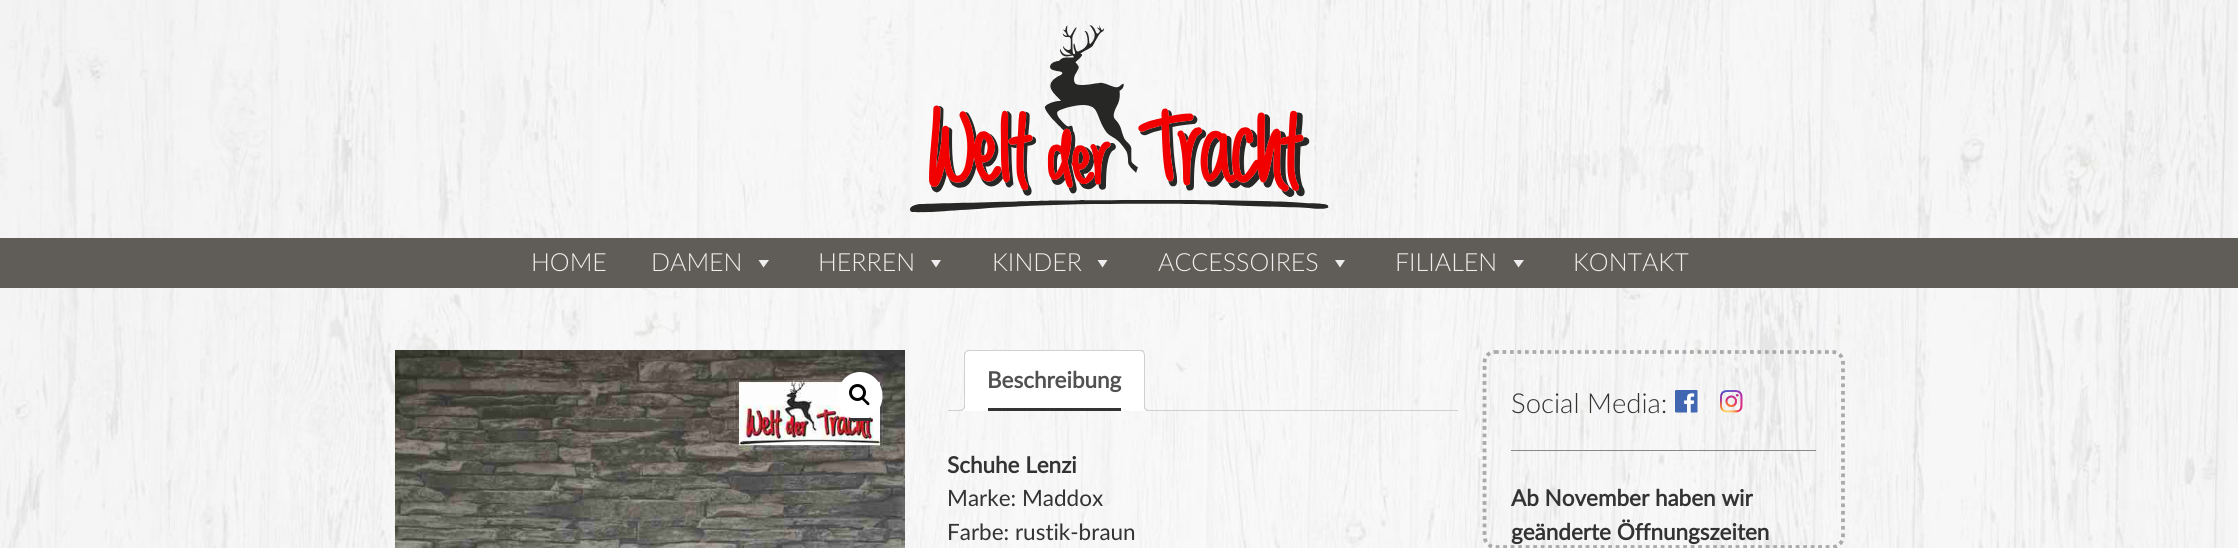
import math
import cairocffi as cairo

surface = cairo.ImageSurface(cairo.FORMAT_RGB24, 2238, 548)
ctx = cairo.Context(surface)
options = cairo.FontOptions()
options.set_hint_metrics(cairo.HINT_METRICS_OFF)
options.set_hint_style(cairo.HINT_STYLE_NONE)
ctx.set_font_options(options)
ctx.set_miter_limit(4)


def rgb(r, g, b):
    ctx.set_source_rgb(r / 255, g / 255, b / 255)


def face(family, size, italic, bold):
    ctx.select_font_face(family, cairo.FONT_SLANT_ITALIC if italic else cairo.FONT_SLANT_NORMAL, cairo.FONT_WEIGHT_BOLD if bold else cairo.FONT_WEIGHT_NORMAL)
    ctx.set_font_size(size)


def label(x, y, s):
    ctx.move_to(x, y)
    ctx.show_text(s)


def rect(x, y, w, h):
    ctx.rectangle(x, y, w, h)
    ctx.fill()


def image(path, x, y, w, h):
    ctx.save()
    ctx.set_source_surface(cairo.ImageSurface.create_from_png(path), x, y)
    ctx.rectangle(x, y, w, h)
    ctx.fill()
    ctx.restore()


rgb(255, 255, 255)
ctx.paint()
image('image0.png', 0, 0, 2238, 548)
image('image1.png', 910, 25, 419, 188)
rgb(96, 92, 87)
rect(0, 238, 2238, 50)
face('Lato Light', 25, 0, 0)
rgb(238, 238, 238)
label(531, 271, 'HOME')
label(651, 271, 'DAMEN')
ctx.new_path()
ctx.move_to(769, 260)
ctx.line_to(763.5, 267.5)
ctx.line_to(758.5, 260)
ctx.close_path()
ctx.fill()
label(818, 271, 'HERREN')
ctx.new_path()
ctx.move_to(941, 260)
ctx.line_to(936, 267.5)
ctx.line_to(931, 260)
ctx.close_path()
ctx.fill()
label(992, 271, 'KINDER')
ctx.new_path()
ctx.move_to(1107.5, 260)
ctx.line_to(1102.5, 267.5)
ctx.line_to(1097.5, 260)
ctx.close_path()
ctx.fill()
label(1158, 271, 'ACCESSOIRES')
ctx.new_path()
ctx.move_to(1345, 260)
ctx.line_to(1340, 267.5)
ctx.line_to(1335, 260)
ctx.close_path()
ctx.fill()
label(1395, 271, 'FILIALEN')
ctx.new_path()
ctx.move_to(1524, 260)
ctx.line_to(1518.5, 267.5)
ctx.line_to(1513.5, 260)
ctx.close_path()
ctx.fill()
label(1573, 271, 'KONTAKT')
image('image2.png', 395, 350, 510, 198)
rgb(255, 255, 255)
ctx.new_path()
ctx.move_to(860, 372)
ctx.curve_to(872.5, 372, 882.5, 382.5, 882.5, 396)
ctx.curve_to(882.5, 409.5, 872.5, 420, 860, 420)
ctx.curve_to(847.5, 420, 837.5, 409.5, 837.5, 396)
ctx.curve_to(837.5, 382.5, 847.5, 372, 860, 372)
ctx.close_path()
ctx.fill()
rgb(51, 51, 51)
rect(849, 418, 22, 3)
ctx.arc(857.5, 392.5, 7, 0, 2 * math.pi)
rgb(0, 0, 0)
ctx.set_line_width(3)
ctx.stroke()
ctx.new_path()
ctx.move_to(862, 397.5)
ctx.curve_to(863.5, 396.5, 865.5, 399.5, 866.5, 400.5)
ctx.curve_to(867.5, 401, 870.5, 403.5, 869, 405)
ctx.curve_to(867.5, 406, 865.5, 403, 864.5, 402)
ctx.curve_to(864, 401.5, 860.5, 399, 862, 397.5)
ctx.close_path()
ctx.fill()
rgb(211, 206, 210)
rect(948, 410, 510, 1)
rgb(255, 255, 255)
ctx.new_path()
ctx.move_to(969, 350)
ctx.line_to(1140, 350)
ctx.curve_to(1143, 350, 1145, 352, 1145, 355)
ctx.line_to(1145, 411)
ctx.line_to(964, 411)
ctx.line_to(964, 355)
ctx.curve_to(964, 352, 966, 350, 969, 350)
ctx.close_path()
ctx.fill()
rgb(211, 206, 210)
ctx.new_path()
ctx.move_to(969, 350)
ctx.curve_to(967, 350, 966, 351, 965, 352)
ctx.line_to(966, 352)
ctx.line_to(969, 351)
ctx.line_to(1140, 351)
ctx.line_to(1143, 352)
ctx.line_to(1144, 351)
ctx.curve_to(1143, 350, 1142, 350, 1140, 350)
ctx.close_path()
ctx.fill()
ctx.new_path()
ctx.move_to(1145, 411)
ctx.line_to(1145, 355)
ctx.curve_to(1145, 354, 1144, 352, 1144, 351)
ctx.line_to(1143, 352)
ctx.line_to(1144, 355)
ctx.line_to(1144, 410)
ctx.close_path()
ctx.fill()
rgb(255, 255, 255)
ctx.new_path()
ctx.move_to(1145, 411)
ctx.line_to(964, 411)
ctx.line_to(965, 410)
ctx.line_to(1144, 410)
ctx.close_path()
ctx.fill()
rgb(211, 206, 210)
ctx.new_path()
ctx.move_to(965, 352)
ctx.curve_to(964, 352, 964, 354, 964, 355)
ctx.line_to(964, 411)
ctx.line_to(965, 410)
ctx.line_to(965, 355)
ctx.line_to(966, 352)
ctx.close_path()
ctx.fill()
rgb(51, 51, 51)
rect(988, 408, 133, 3)
face('Lato', 22.5, 0, 1)
rgb(81, 81, 81)
label(987, 388, 'Beschreibung')
ctx.save()
ctx.rectangle(948, 350, 510, 61)
ctx.clip()
rgb(255, 255, 255)
ctx.new_path()
ctx.move_to(961, 411)
ctx.line_to(961, 414)
ctx.curve_to(965.5, 414, 968, 413, 968, 408)
ctx.line_to(964.5, 408)
ctx.curve_to(964, 409.5, 962.5, 411, 961, 411)
ctx.close_path()
ctx.fill()
ctx.restore()
rgb(211, 206, 210)
ctx.set_fill_rule(cairo.FILL_RULE_EVEN_ODD)
ctx.new_path()
ctx.move_to(959, 405)
ctx.line_to(965, 405)
ctx.curve_to(965, 409.5, 963, 411, 959, 411)
ctx.close_path()
ctx.move_to(959, 405)
ctx.line_to(964, 405)
ctx.curve_to(964, 408.5, 962.5, 410, 959, 410)
ctx.close_path()
ctx.fill()
ctx.save()
ctx.set_fill_rule(cairo.FILL_RULE_WINDING)
ctx.rectangle(948, 350, 510, 61)
ctx.clip()
rgb(255, 255, 255)
ctx.new_path()
ctx.move_to(1141, 408)
ctx.curve_to(1141, 413, 1143.5, 414, 1148, 414)
ctx.line_to(1148, 411)
ctx.curve_to(1146, 411, 1144.5, 409.5, 1144, 408)
ctx.close_path()
ctx.fill()
ctx.restore()
ctx.new_path()
ctx.move_to(1144, 405)
ctx.line_to(1150, 405)
ctx.line_to(1150, 411)
ctx.curve_to(1147, 411, 1144, 410, 1144, 406)
ctx.close_path()
ctx.move_to(1145, 405)
ctx.line_to(1150, 405)
ctx.line_to(1150, 410)
ctx.curve_to(1147.5, 410, 1145, 409, 1145, 406)
ctx.close_path()
ctx.fill()
rgb(51, 51, 51)
label(947, 473, 'Schuhe Lenzi')
face('Lato', 22.5, 0, 0)
label(947, 506, 'Marke: Maddox')
label(947, 540, 'Farbe: rustik-braun')
ctx.new_path()
ctx.move_to(1495, 352)
ctx.line_to(1832.5, 352)
ctx.curve_to(1838.5, 352, 1843, 356.5, 1843, 362.5)
ctx.line_to(1843, 536)
ctx.curve_to(1843, 542, 1838.5, 547, 1832.5, 547)
ctx.line_to(1495, 547)
ctx.curve_to(1489, 547, 1484.5, 542, 1484.5, 536)
ctx.line_to(1484.5, 362.5)
ctx.curve_to(1484.5, 356.5, 1489, 352, 1495, 352)
ctx.close_path()
rgb(170, 170, 170)
ctx.set_line_width(3.8)
ctx.set_dash([3.75, 3.75])
ctx.stroke()
face('Lato Light', 27.5, 0, 0)
rgb(51, 51, 51)
label(1511, 413, 'Social Media:')
image('image3.png', 1675, 390, 23, 23)
image('image4.png', 1720, 390, 23, 23)
rgb(136, 136, 136)
rect(1511, 450, 305, 1)
face('Lato', 22.5, 0, 1)
rgb(51, 51, 51)
label(1511, 506, 'Ab November haben wir')
label(1511, 540, 'geänderte Öffnungszeiten')
surface.write_to_png('render.png')
